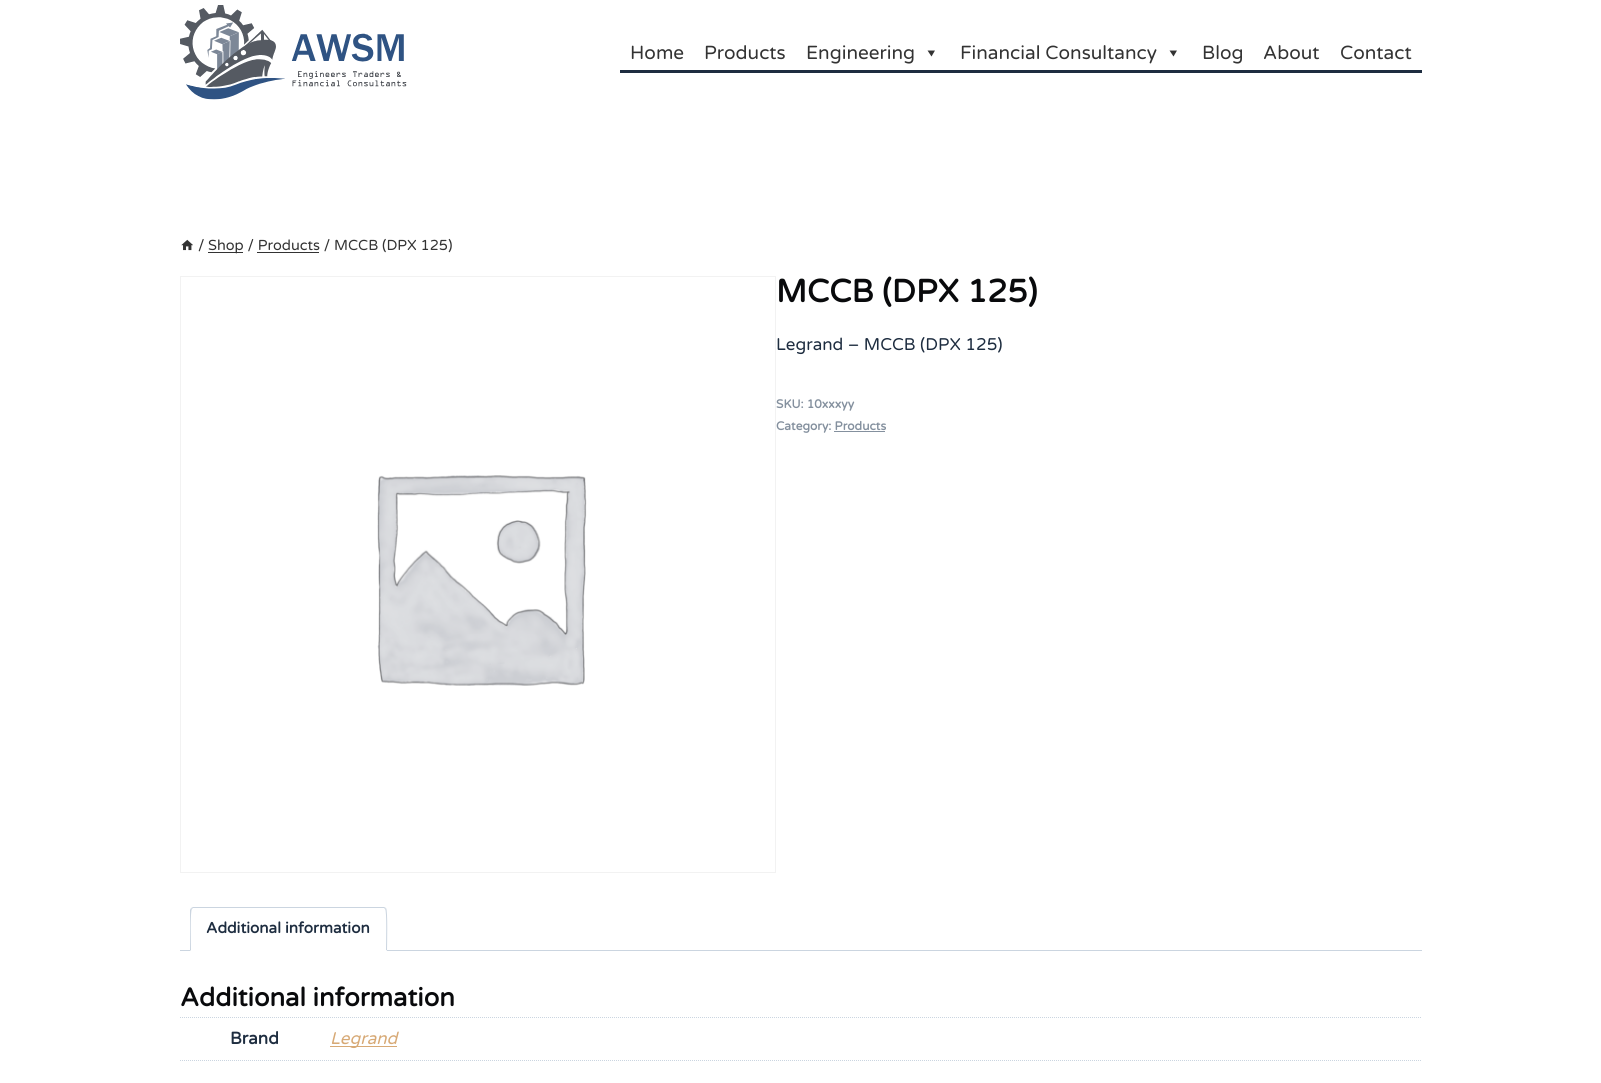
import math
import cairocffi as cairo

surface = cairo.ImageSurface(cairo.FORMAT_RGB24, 1601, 1083)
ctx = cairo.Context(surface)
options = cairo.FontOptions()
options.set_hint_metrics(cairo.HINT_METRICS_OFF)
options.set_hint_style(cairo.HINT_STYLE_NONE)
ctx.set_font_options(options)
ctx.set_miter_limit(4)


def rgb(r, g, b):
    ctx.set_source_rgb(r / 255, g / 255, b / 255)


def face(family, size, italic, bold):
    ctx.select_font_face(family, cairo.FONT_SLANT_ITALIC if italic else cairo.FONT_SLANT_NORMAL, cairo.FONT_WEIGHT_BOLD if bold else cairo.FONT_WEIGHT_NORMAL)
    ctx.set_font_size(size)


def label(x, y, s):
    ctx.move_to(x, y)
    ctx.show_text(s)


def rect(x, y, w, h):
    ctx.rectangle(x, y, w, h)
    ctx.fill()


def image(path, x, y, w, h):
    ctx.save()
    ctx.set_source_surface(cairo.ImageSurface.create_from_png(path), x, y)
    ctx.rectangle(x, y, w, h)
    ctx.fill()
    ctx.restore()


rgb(255, 255, 255)
ctx.paint()
image('image0.png', 180, 5, 227, 95)
rgb(30, 45, 64)
rect(620, 70, 802, 3)
face('Varela Round', 19, 0, 0)
rgb(51, 51, 51)
label(630, 59, 'Home')
label(704, 59, 'Products')
label(806, 59, 'Engineering')
ctx.new_path()
ctx.move_to(935, 50.5)
ctx.line_to(931.5, 56.5)
ctx.line_to(927.5, 50.5)
ctx.close_path()
ctx.fill()
label(960, 59, 'Financial Consultancy')
ctx.new_path()
ctx.move_to(1177, 50.5)
ctx.line_to(1173.5, 56.5)
ctx.line_to(1169.5, 50.5)
ctx.close_path()
ctx.fill()
label(1202, 59, 'Blog')
label(1263, 59, 'About')
label(1340, 59, 'Contact')
image('image1.png', 181, 239, 12, 12)
face('Varela Round', 14.5, 0, 0)
label(198, 250, '/')
rect(208, 252, 35, 1)
label(208, 250, 'Shop / Products / MCCB (DPX 125)')
rect(257, 252, 62, 1)
ctx.rectangle(180.5, 276.5, 595, 596)
rgb(242, 242, 242)
ctx.set_line_width(1)
ctx.stroke()
image('image2.png', 377, 475, 210, 211)
face('Varela Round', 32, 0, 1)
rgb(9, 10, 12)
label(776, 302, 'MCCB (DPX 125)')
face('Varela Round', 17, 0, 0)
rgb(30, 45, 64)
label(776, 350, 'Legrand – MCCB (DPX 125)')
face('Varela Round', 12, 0, 1)
rgb(132, 144, 158)
label(776, 408, 'SKU: 10xxxyy')
label(776, 430, 'Category: Products')
rect(834, 431, 51, 1)
rgb(203, 213, 224)
rect(180, 950, 1242, 1)
rgb(255, 255, 255)
ctx.new_path()
ctx.move_to(193, 907)
ctx.line_to(384, 907)
ctx.curve_to(385.5, 907, 387, 908.5, 387, 910)
ctx.line_to(387, 951)
ctx.line_to(190, 951)
ctx.line_to(190, 910)
ctx.curve_to(190, 908.5, 191.5, 907, 193, 907)
ctx.close_path()
ctx.fill()
rgb(203, 213, 224)
ctx.new_path()
ctx.move_to(193, 907)
ctx.line_to(191, 908)
ctx.line_to(192, 909)
ctx.line_to(193, 908)
ctx.line_to(384, 908)
ctx.line_to(385, 909)
ctx.line_to(386, 908)
ctx.line_to(384, 907)
ctx.close_path()
ctx.fill()
ctx.new_path()
ctx.move_to(387, 951)
ctx.curve_to(387, 946, 388, 910, 386, 908)
ctx.line_to(385, 909)
ctx.curve_to(387, 910, 386, 945, 386, 950)
ctx.close_path()
ctx.fill()
rgb(255, 255, 255)
ctx.new_path()
ctx.move_to(387, 951)
ctx.line_to(386, 950)
ctx.line_to(191, 950)
ctx.line_to(190, 951)
ctx.close_path()
ctx.fill()
rgb(203, 213, 224)
ctx.new_path()
ctx.move_to(190, 951)
ctx.line_to(191, 950)
ctx.curve_to(191, 945, 190, 910, 192, 909)
ctx.line_to(191, 908)
ctx.line_to(190, 910)
ctx.close_path()
ctx.fill()
face('Varela Round', 15.25, 0, 1)
rgb(30, 45, 64)
label(206, 933, 'Additional information')
face('Varela Round', 25.6, 0, 1)
rgb(9, 10, 12)
label(180, 1006, 'Additional information')
ctx.new_path()
ctx.move_to(180, 1017.5)
ctx.line_to(1422, 1017.5)
rgb(203, 213, 224)
ctx.set_dash([1, 1])
ctx.stroke()
ctx.new_path()
ctx.move_to(180, 1060.5)
ctx.line_to(330, 1060.5)
ctx.stroke()
face('Varela Round', 17, 0, 1)
rgb(30, 45, 64)
label(230, 1044, 'Brand')
ctx.new_path()
ctx.move_to(330, 1060.5)
ctx.line_to(1422, 1060.5)
rgb(203, 213, 224)
ctx.stroke()
rgb(215, 169, 117)
rect(330, 1046, 67, 1)
face('Varela Round', 17, 1, 0)
label(330, 1044, 'Legrand')
surface.write_to_png('render.png')
